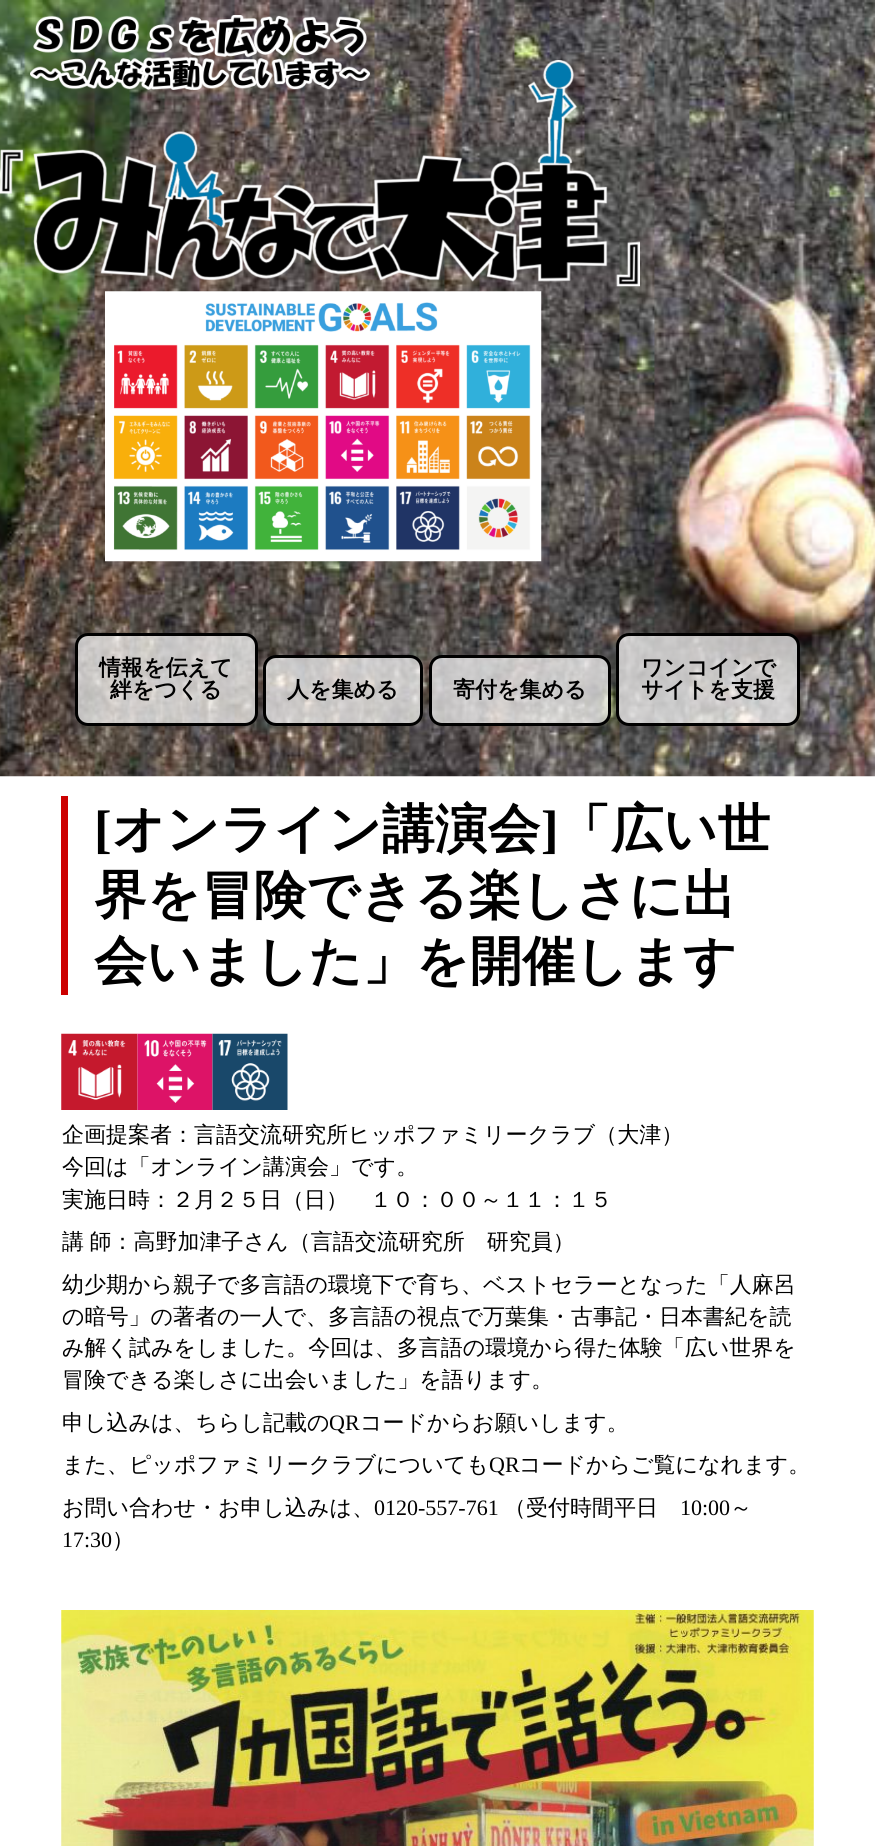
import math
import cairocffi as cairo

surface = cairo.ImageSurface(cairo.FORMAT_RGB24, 875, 1846)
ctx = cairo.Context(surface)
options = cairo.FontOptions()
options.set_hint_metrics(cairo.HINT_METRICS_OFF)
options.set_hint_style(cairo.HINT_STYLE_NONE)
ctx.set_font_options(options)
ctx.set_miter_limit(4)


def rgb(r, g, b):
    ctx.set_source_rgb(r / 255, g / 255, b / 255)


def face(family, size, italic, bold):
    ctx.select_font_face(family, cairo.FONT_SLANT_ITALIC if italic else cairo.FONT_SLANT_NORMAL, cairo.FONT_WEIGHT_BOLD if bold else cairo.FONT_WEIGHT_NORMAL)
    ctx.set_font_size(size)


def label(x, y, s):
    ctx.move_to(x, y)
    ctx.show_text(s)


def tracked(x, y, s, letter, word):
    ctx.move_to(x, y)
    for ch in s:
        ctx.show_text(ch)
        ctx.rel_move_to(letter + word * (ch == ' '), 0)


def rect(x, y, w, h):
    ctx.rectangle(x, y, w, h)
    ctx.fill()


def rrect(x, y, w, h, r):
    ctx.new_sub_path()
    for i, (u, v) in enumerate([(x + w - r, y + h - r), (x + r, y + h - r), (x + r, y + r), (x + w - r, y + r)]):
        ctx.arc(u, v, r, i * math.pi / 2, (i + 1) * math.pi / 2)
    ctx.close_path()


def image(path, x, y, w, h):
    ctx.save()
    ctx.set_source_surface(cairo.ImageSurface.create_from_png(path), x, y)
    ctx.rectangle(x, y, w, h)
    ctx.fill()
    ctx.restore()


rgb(255, 255, 255)
ctx.paint()
image('image0.png', 0, 0, 875, 777)
image('image2.png', 0, 60, 640, 227)
image('image1.png', 30, 15, 340, 75)
image('image3.png', 105, 291, 437, 271)
ctx.set_source_rgba(1, 1, 1, 0.7)
rrect(76.5, 634.5, 180, 90, 11.5)
ctx.fill_preserve()
rgb(0, 0, 0)
ctx.set_line_width(3)
ctx.stroke()
face('WenQuanYi Zen Hei', 22, 0, 1)
label(99, 675, '情報を伝えて')
label(110, 697, '絆をつくる')
ctx.set_source_rgba(1, 1, 1, 0.7)
rrect(264.5, 656.5, 157, 68, 11.5)
ctx.fill_preserve()
rgb(0, 0, 0)
ctx.stroke()
label(287, 697, '人を集める')
ctx.set_source_rgba(1, 1, 1, 0.7)
rrect(430.5, 656.5, 179, 68, 11.5)
ctx.fill_preserve()
rgb(0, 0, 0)
ctx.stroke()
label(453, 697, '寄付を集める')
ctx.set_source_rgba(1, 1, 1, 0.7)
rrect(617.5, 634.5, 181, 90, 11.5)
ctx.fill_preserve()
rgb(0, 0, 0)
ctx.stroke()
label(641, 675, 'ワンコインで')
label(641, 697, 'サイトを支援')
rgb(204, 0, 0)
rect(61, 796, 7, 199)
face('Liberation Serif', 52.75, 0, 1)
rgb(0, 0, 0)
label(94, 847, '[')
face('WenQuanYi Zen Hei', 52.75, 0, 1)
label(112, 847, 'オンライン講演会')
face('Liberation Serif', 52.75, 0, 1)
label(541, 847, ']')
face('WenQuanYi Zen Hei', 52.75, 0, 1)
label(558, 847, '「広い世')
label(94, 913, '界を冒険できる楽しさに出')
label(94, 979, '会いました」を開催します')
image('image4.png', 61, 1033, 77, 77)
image('image5.png', 137, 1033, 76, 77)
image('image6.png', 212, 1033, 76, 77)
face('WenQuanYi Zen Hei Medium', 22, 0, 0)
label(62, 1142, '企画提案者：言語交流研究所ヒッポファミリークラブ（大津）')
label(62, 1174, '今回は「オンライン講演会」です。')
label(62, 1207, '実施日時：２月２５日（日）　１０：００～１１：１５')
tracked(62, 1249, '講 師：高野加津子さん（言語交流研究所　研究員）', 0, -1)
label(62, 1292, '幼少期から親子で多言語の環境下で育ち、ベストセラーとなった「人麻呂')
label(62, 1324, 'の暗号」の著者の一人で、多言語の視点で万葉集・古事記・日本書紀を読')
label(62, 1355, 'み解く試みをしました。今回は、多言語の環境から得た体験「広い世界を')
label(62, 1387, '冒険できる楽しさに出会いました」を語ります。')
label(62, 1430, '申し込みは、ちらし記載の')
face('Liberation Serif', 22, 0, 0)
label(329, 1430, 'QR')
face('WenQuanYi Zen Hei Medium', 22, 0, 0)
label(360, 1430, 'コードからお願いします。')
label(62, 1472, 'また、ピッポファミリークラブについても')
face('Liberation Serif', 22, 0, 0)
label(489, 1472, 'QR')
face('WenQuanYi Zen Hei Medium', 22, 0, 0)
label(519, 1472, 'コードからご覧になれます。')
label(62, 1515, 'お問い合わせ・お申し込みは、')
face('Liberation Serif', 22, 0, 0)
label(374, 1515, '0120-557-761')
face('WenQuanYi Zen Hei Medium', 22, 0, 0)
label(504, 1515, '（受付時間平日')
face('Liberation Serif', 22, 0, 0)
label(680, 1515, '10:00')
face('WenQuanYi Zen Hei Medium', 22, 0, 0)
label(730, 1515, '～')
face('Liberation Serif', 22, 0, 0)
label(62, 1547, '17:30')
face('WenQuanYi Zen Hei Medium', 22, 0, 0)
label(112, 1547, '）')
image('image7.png', 61, 1610, 753, 236)
surface.write_to_png('render.png')
